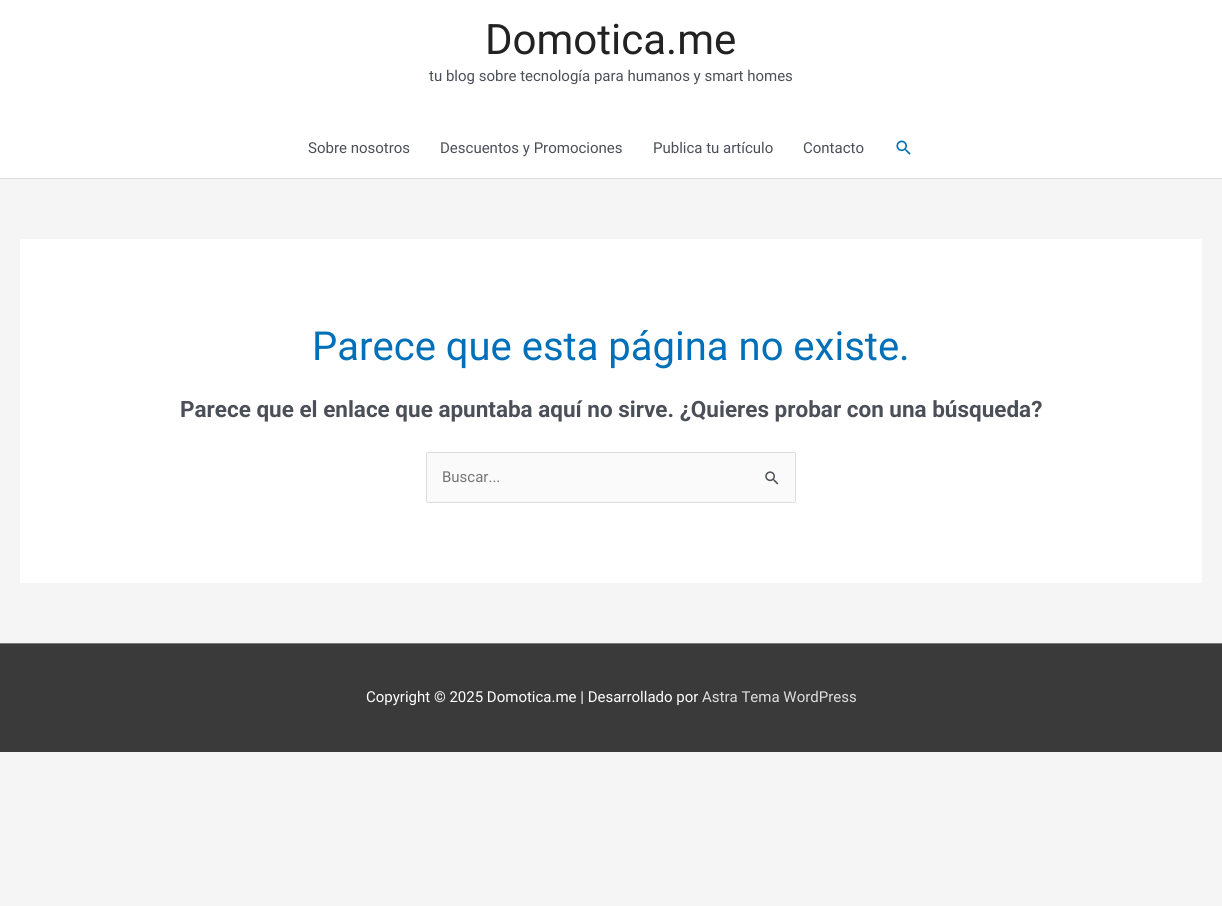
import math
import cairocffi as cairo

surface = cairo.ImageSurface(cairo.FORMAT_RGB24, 1222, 906)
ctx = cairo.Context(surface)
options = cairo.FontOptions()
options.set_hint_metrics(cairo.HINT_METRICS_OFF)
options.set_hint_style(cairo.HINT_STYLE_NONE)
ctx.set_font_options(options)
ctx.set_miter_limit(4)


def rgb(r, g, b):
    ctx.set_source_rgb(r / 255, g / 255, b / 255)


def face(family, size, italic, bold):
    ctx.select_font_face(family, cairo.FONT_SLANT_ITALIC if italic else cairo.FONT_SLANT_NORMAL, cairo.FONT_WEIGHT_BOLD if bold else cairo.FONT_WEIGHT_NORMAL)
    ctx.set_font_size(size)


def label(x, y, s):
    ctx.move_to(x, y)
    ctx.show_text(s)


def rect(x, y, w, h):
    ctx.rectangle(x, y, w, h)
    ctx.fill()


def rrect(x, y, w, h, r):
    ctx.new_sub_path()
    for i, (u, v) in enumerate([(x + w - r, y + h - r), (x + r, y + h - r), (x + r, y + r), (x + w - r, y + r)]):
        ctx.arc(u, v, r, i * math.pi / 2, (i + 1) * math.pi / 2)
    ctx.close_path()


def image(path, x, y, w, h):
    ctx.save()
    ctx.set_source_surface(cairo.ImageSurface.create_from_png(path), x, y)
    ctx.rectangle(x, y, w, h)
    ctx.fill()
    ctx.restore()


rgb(245, 245, 245)
ctx.paint()
rgb(255, 255, 255)
rect(0, 0, 1222, 178)
rgb(221, 221, 221)
rect(0, 178, 1222, 1)
face('Roboto', 42, 0, 0)
rgb(34, 34, 34)
label(485, 54, 'Domotica.me')
face('Roboto', 15, 0, 0)
rgb(75, 79, 88)
label(429, 81, 'tu blog sobre tecnología para humanos y smart homes')
label(308, 153, 'Sobre nosotros')
label(440, 153, 'Descuentos y Promociones')
label(653, 153, 'Publica tu artículo')
label(803, 153, 'Contacto')
image('image0.png', 896, 140, 15, 15)
rgb(255, 255, 255)
rect(20, 239, 1182, 344)
face('Roboto', 40, 0, 0)
rgb(1, 112, 185)
label(312, 360, 'Parece que esta página no existe.')
face('Roboto', 22.5, 0, 1)
rgb(75, 79, 88)
label(180, 417, 'Parece que el enlace que apuntaba aquí no sirve. ¿Quieres probar con una búsqueda?')
rgb(250, 250, 250)
rrect(426.5, 452.5, 369, 50, 1.5)
ctx.fill_preserve()
rgb(221, 221, 221)
ctx.set_line_width(1)
ctx.stroke()
face('Roboto', 15, 0, 0)
rgb(117, 117, 117)
label(442, 482, 'Buscar...')
image('image1.png', 765, 471, 14, 14)
rgb(122, 122, 122)
rect(0, 643, 1222, 1)
rgb(58, 58, 58)
rect(0, 644, 1222, 108)
rgb(255, 255, 255)
label(366, 702, 'Copyright © 2025 Domotica.me | Desarrollado por')
rgb(221, 221, 221)
label(702, 702, 'Astra Tema WordPress')
surface.write_to_png('render.png')
